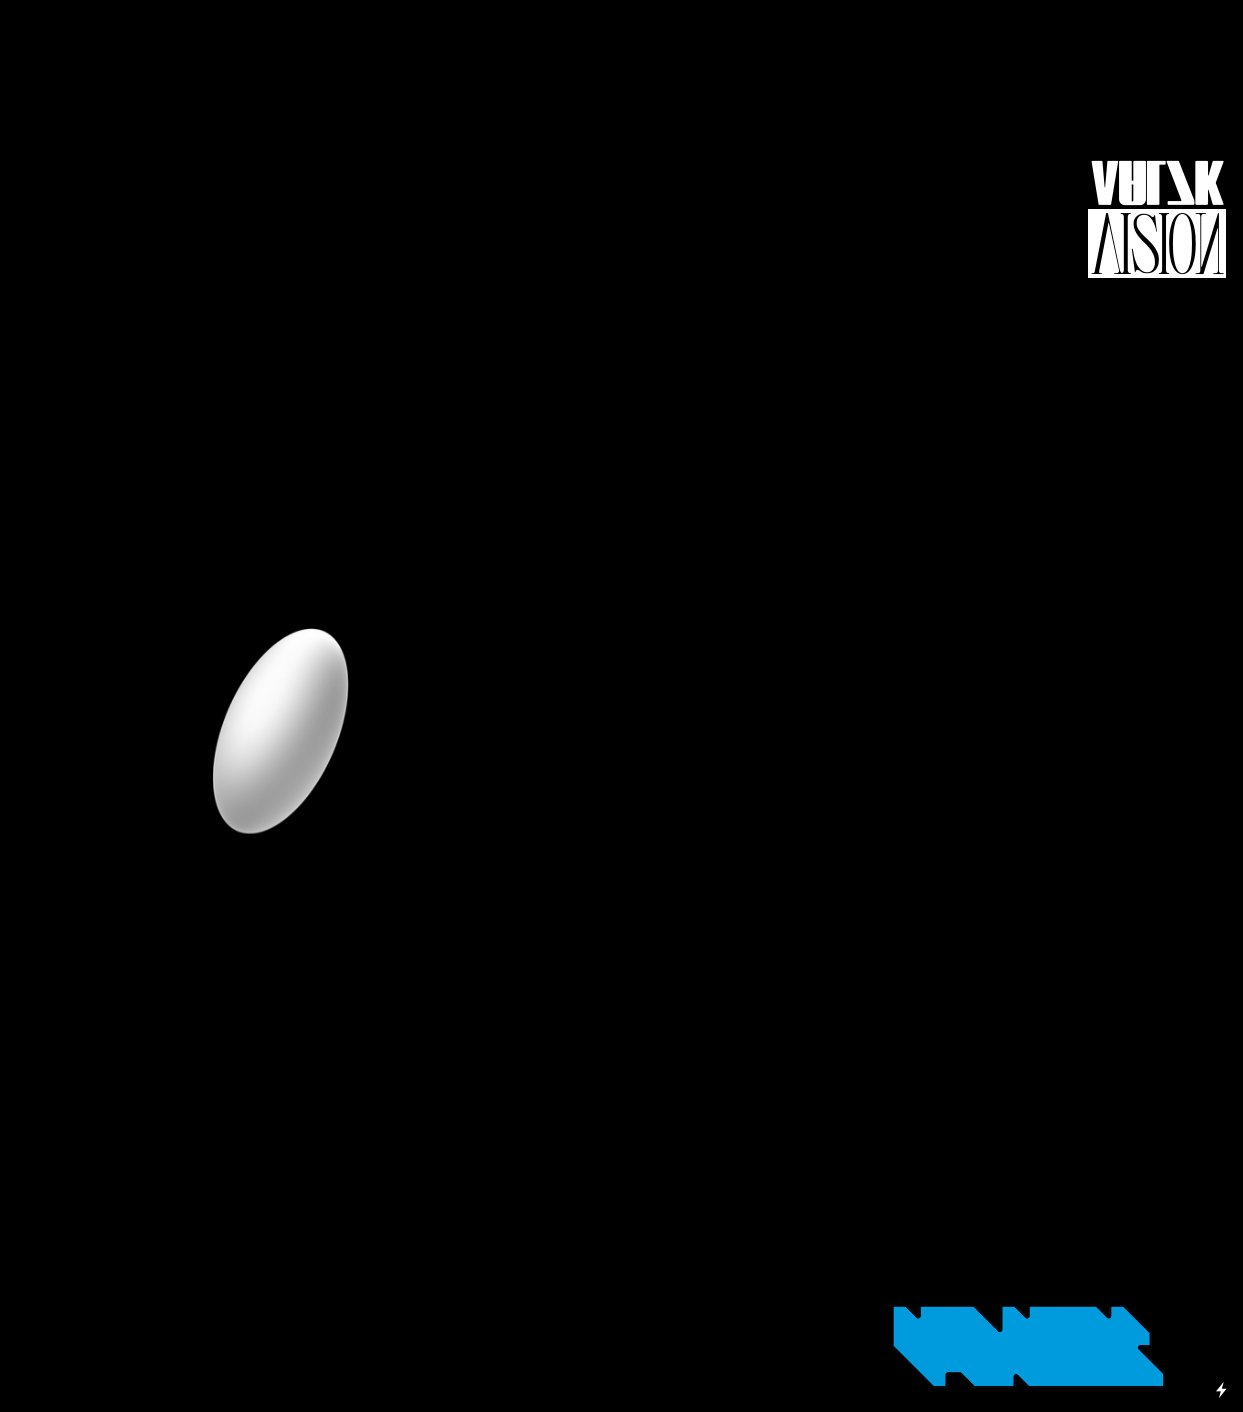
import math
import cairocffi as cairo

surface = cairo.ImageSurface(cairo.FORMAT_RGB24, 1243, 1412)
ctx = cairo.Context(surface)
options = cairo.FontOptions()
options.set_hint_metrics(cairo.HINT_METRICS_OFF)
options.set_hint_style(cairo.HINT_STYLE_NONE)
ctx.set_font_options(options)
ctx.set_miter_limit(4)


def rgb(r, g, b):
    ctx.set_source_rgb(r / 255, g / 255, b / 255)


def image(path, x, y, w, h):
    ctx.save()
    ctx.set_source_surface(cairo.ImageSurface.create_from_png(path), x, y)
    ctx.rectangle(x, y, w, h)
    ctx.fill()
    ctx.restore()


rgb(0, 0, 0)
ctx.paint()
image('image0.png', 1088, 160, 138, 118)
image('image1.png', 212, 628, 137, 206)
image('image2.png', 892, 1305, 273, 83)
image('image3.png', 1216, 1382, 11, 16)
surface.write_to_png('render.png')
